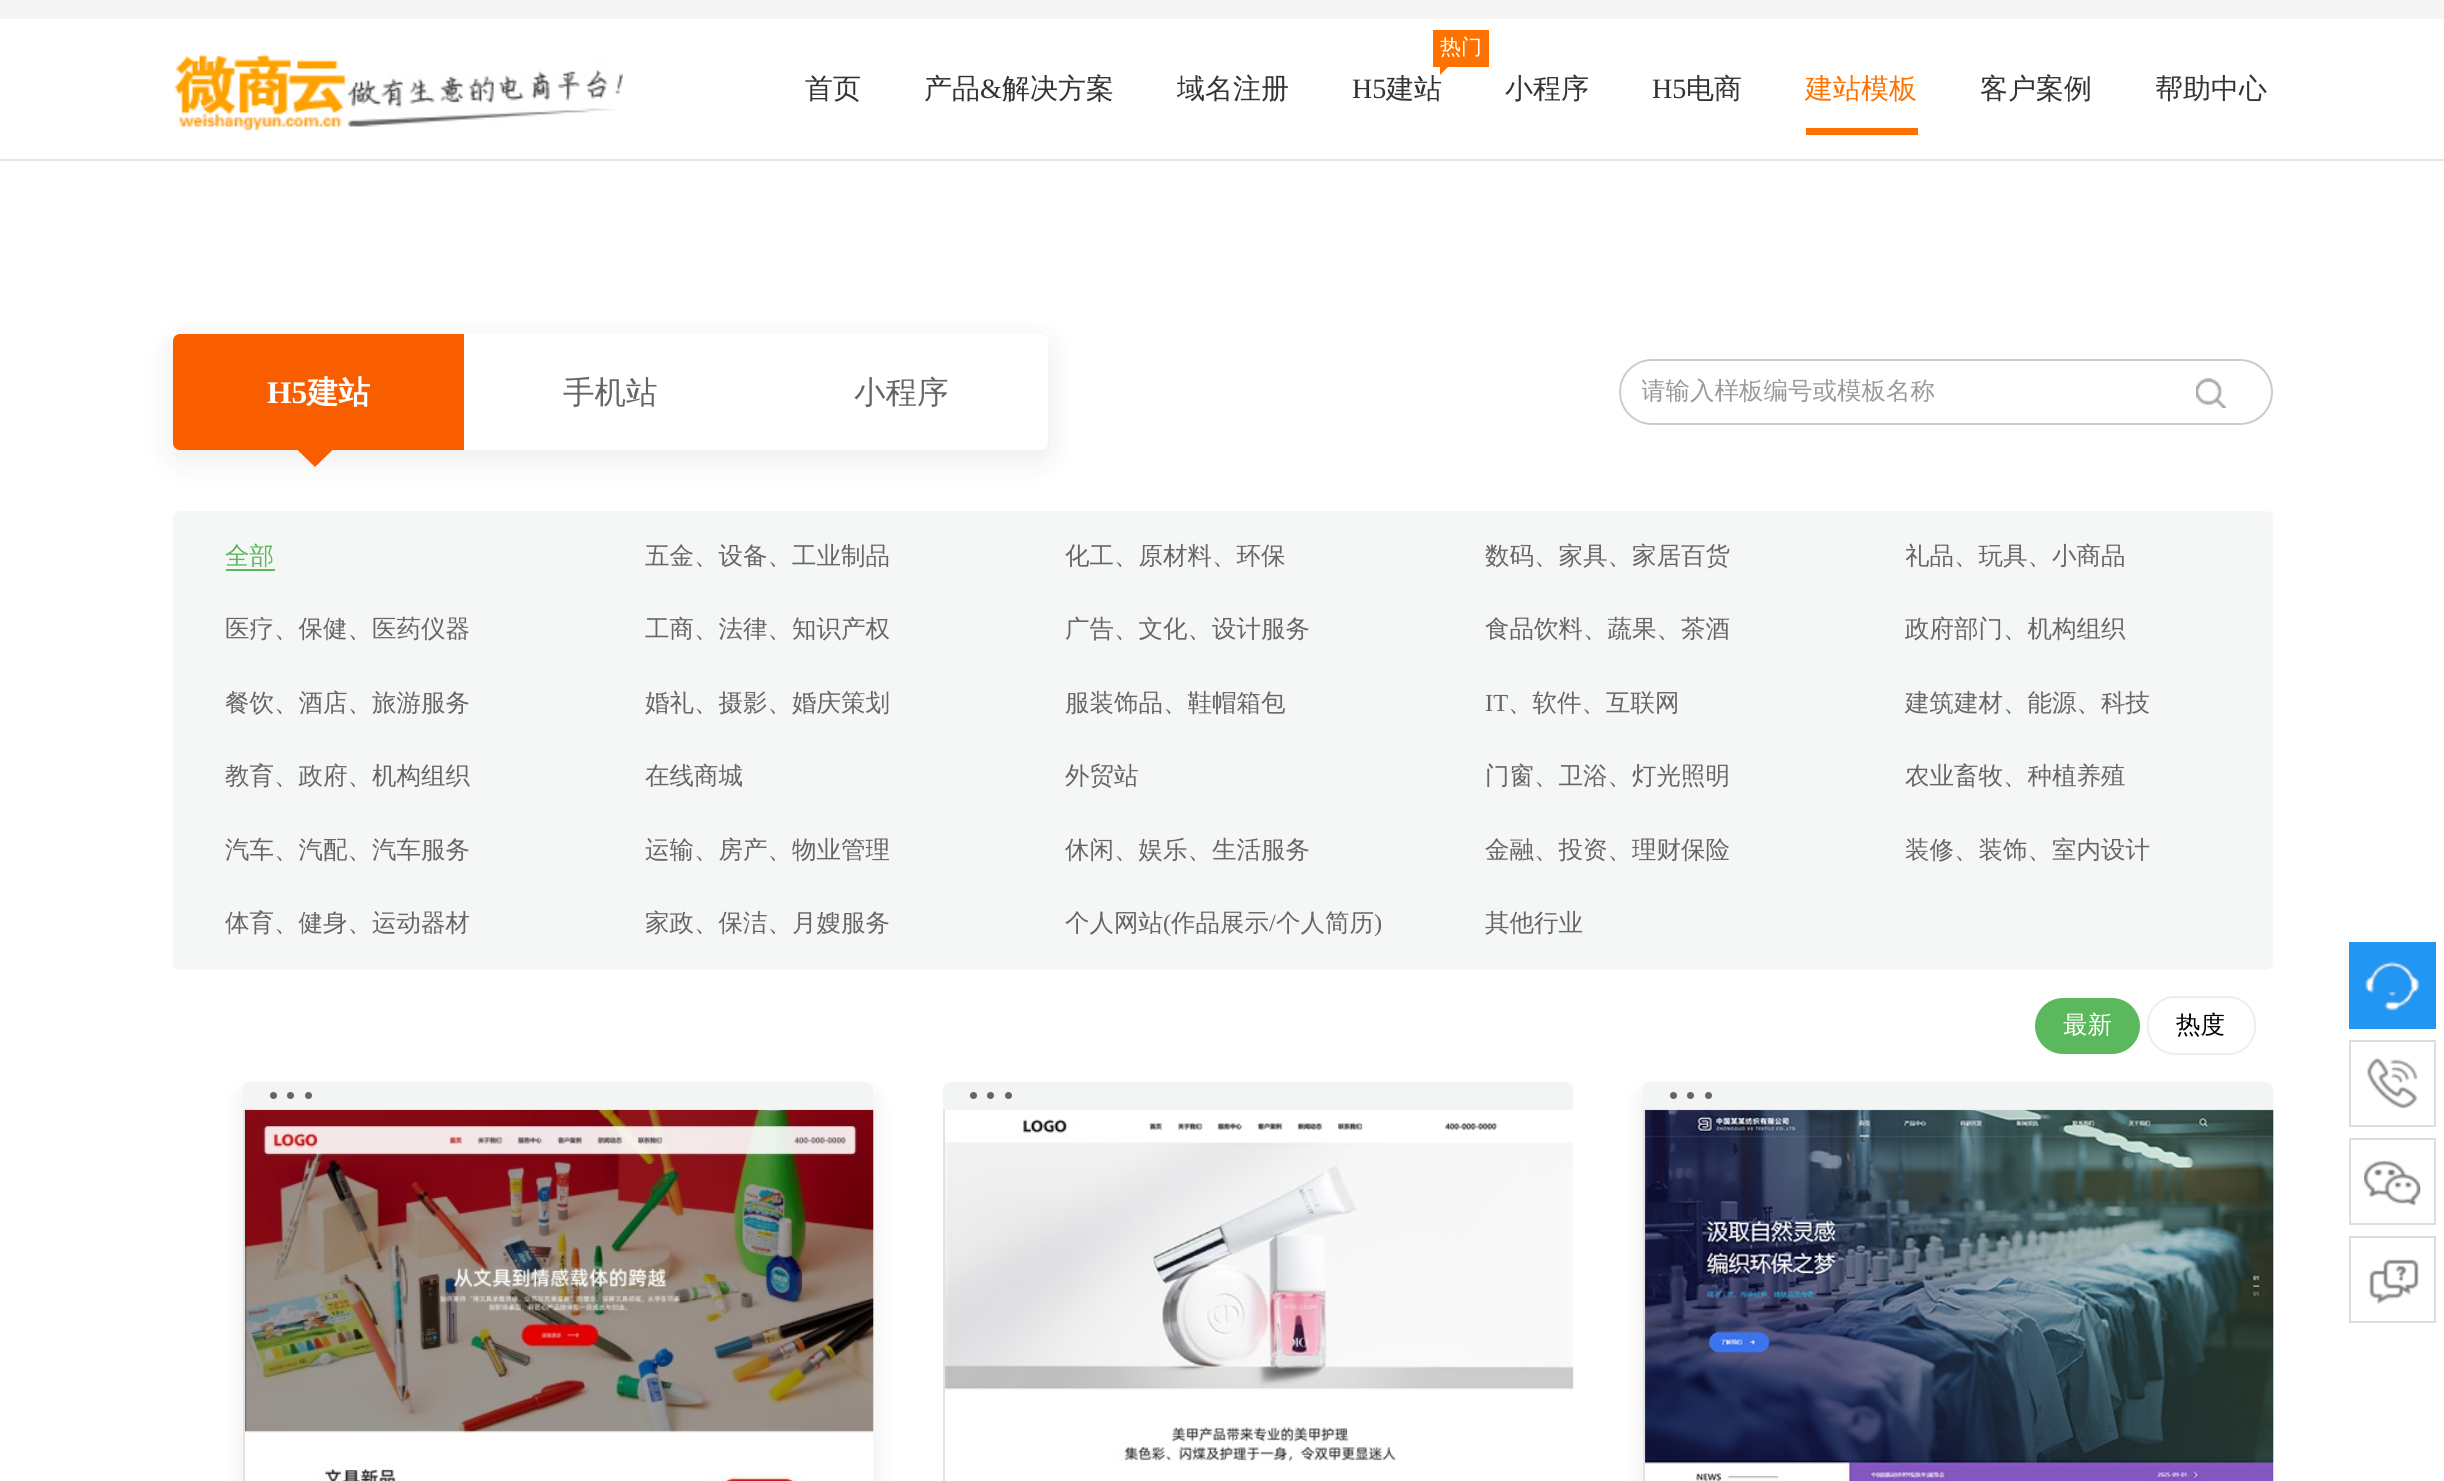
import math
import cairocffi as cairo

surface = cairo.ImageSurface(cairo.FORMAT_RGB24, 2444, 1481)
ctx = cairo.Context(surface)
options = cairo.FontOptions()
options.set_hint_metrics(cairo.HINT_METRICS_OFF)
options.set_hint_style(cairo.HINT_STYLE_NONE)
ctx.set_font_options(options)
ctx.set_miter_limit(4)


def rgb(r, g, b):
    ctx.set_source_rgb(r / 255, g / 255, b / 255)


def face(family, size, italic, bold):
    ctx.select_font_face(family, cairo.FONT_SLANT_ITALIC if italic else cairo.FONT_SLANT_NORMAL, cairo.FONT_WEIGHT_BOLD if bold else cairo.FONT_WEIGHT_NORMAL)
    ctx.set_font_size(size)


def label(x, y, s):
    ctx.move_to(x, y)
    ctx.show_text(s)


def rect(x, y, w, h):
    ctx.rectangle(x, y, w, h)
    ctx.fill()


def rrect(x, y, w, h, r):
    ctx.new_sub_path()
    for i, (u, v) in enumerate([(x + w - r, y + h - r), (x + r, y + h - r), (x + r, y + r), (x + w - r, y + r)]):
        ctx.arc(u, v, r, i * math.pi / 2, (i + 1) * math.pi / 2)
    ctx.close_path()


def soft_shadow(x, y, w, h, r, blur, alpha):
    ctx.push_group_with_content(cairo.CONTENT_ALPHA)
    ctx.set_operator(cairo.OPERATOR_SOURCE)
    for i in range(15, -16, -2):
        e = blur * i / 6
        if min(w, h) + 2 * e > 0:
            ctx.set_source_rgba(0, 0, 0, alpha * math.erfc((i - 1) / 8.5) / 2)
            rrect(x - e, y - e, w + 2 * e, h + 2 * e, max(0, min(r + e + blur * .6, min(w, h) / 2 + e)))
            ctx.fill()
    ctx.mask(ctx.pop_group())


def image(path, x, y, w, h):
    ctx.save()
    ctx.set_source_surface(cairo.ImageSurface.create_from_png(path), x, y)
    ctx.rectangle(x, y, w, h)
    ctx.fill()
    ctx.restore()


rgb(255, 255, 255)
ctx.paint()
rgb(245, 245, 245)
rect(0, 0, 2444, 19)
image('image0.png', 174, 54, 449, 77)
face('WenQuanYi Zen Hei Medium', 28, 0, 0)
rgb(51, 51, 51)
label(805, 98, '首页')
label(924, 98, '产品')
face('Liberation Serif', 28, 0, 0)
label(980, 98, '&')
face('WenQuanYi Zen Hei Medium', 28, 0, 0)
label(1002, 98, '解决方案')
label(1177, 98, '域名注册')
rgb(255, 114, 0)
rect(1433, 30, 56, 37)
face('WenQuanYi Zen Hei Medium', 21, 0, 0)
rgb(255, 255, 255)
label(1440, 54, '热门')
rgb(255, 114, 0)
ctx.new_path()
ctx.move_to(1440, 61)
ctx.line_to(1454, 61)
ctx.line_to(1440, 75)
ctx.close_path()
ctx.fill()
face('Liberation Serif', 28, 0, 0)
rgb(51, 51, 51)
label(1352, 98, 'H5')
face('WenQuanYi Zen Hei Medium', 28, 0, 0)
label(1386, 98, '建站')
label(1505, 98, '小程序')
face('Liberation Serif', 28, 0, 0)
label(1652, 98, 'H5')
face('WenQuanYi Zen Hei Medium', 28, 0, 0)
label(1686, 98, '电商')
rgb(255, 114, 0)
rect(1806, 128, 112, 7)
label(1805, 98, '建站模板')
rgb(51, 51, 51)
label(1980, 98, '客户案例')
label(2155, 98, '帮助中心')
rgb(230, 230, 230)
rect(0, 159, 2444, 2)
rgb(245, 247, 247)
rrect(173, 511, 2100, 459, 7)
ctx.fill()
rgb(0, 0, 0)
soft_shadow(173, 343, 875, 116, 7, 17.5, 0.08)
rgb(255, 255, 255)
rrect(173, 334, 875, 116, 7)
ctx.fill()
rgb(248, 93, 0)
ctx.new_path()
ctx.move_to(180, 334)
ctx.line_to(464, 334)
ctx.line_to(464, 450)
ctx.line_to(180, 450)
ctx.curve_to(176, 450, 173, 447, 173, 443)
ctx.line_to(173, 341)
ctx.curve_to(173, 337, 176, 334, 180, 334)
ctx.close_path()
ctx.fill()
face('Liberation Serif', 31.5, 0, 1)
rgb(255, 255, 255)
label(267, 403, 'H5')
face('WenQuanYi Zen Hei', 31.5, 0, 1)
label(307, 403, '建站')
rgb(248, 93, 0)
ctx.new_path()
ctx.move_to(297.5, 450)
ctx.line_to(332.5, 450)
ctx.line_to(315, 467)
ctx.close_path()
ctx.fill()
face('WenQuanYi Zen Hei Medium', 31.5, 0, 0)
rgb(102, 102, 102)
label(563, 403, '手机站')
label(854, 403, '小程序')
rrect(1620, 360, 652, 64, 32)
rgb(204, 204, 204)
ctx.stroke()
ctx.save()
ctx.rectangle(1642, 376, 630, 32)
ctx.clip()
face('WenQuanYi Zen Hei Medium', 24.5, 0, 0)
rgb(153, 153, 153)
label(1641, 399, '请输入样板编号或模板名称')
ctx.restore()
image('image1.png', 2196, 378, 30, 30)
face('WenQuanYi Zen Hei Medium', 24.5, 0, 0)
rgb(92, 184, 92)
label(225, 564, '全部')
rect(226, 569, 49, 2)
rgb(102, 102, 102)
label(645, 564, '五金、设备、工业制品')
label(1065, 564, '化工、原材料、环保')
label(1485, 564, '数码、家具、家居百货')
label(1905, 564, '礼品、玩具、小商品')
label(225, 637, '医疗、保健、医药仪器')
label(645, 637, '工商、法律、知识产权')
label(1065, 637, '广告、文化、设计服务')
label(1485, 637, '食品饮料、蔬果、茶酒')
label(1905, 637, '政府部门、机构组织')
label(225, 711, '餐饮、酒店、旅游服务')
label(645, 711, '婚礼、摄影、婚庆策划')
label(1065, 711, '服装饰品、鞋帽箱包')
face('Liberation Serif', 24.5, 0, 0)
label(1485, 711, 'IT')
face('WenQuanYi Zen Hei Medium', 24.5, 0, 0)
label(1508, 711, '、软件、互联网')
label(1905, 711, '建筑建材、能源、科技')
label(225, 784, '教育、政府、机构组织')
label(645, 784, '在线商城')
label(1065, 784, '外贸站')
label(1485, 784, '门窗、卫浴、灯光照明')
label(1905, 784, '农业畜牧、种植养殖')
label(225, 858, '汽车、汽配、汽车服务')
label(645, 858, '运输、房产、物业管理')
label(1065, 858, '休闲、娱乐、生活服务')
label(1485, 858, '金融、投资、理财保险')
label(1905, 858, '装修、装饰、室内设计')
label(225, 931, '体育、健身、运动器材')
label(645, 931, '家政、保洁、月嫂服务')
label(1065, 931, '个人网站')
face('Liberation Serif', 24.5, 0, 0)
label(1163, 931, '(')
face('WenQuanYi Zen Hei Medium', 24.5, 0, 0)
label(1171, 931, '作品展示')
face('Liberation Serif', 24.5, 0, 0)
label(1269, 931, '/')
face('WenQuanYi Zen Hei Medium', 24.5, 0, 0)
label(1276, 931, '个人简历')
face('Liberation Serif', 24.5, 0, 0)
label(1374, 931, ')')
face('WenQuanYi Zen Hei Medium', 24.5, 0, 0)
label(1485, 931, '其他行业')
rgb(92, 184, 92)
rrect(2035, 998, 105, 56, 28)
ctx.fill()
rgb(255, 255, 255)
label(2063, 1033, '最新')
rrect(2148, 997, 107, 57, 27)
rgb(238, 238, 238)
ctx.stroke()
rgb(0, 0, 0)
label(2176, 1033, '热度')
rgb(0, 0, 0)
soft_shadow(243, 1099, 630, 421, 0, 13, 0.08)
rgb(243, 244, 244)
ctx.new_path()
ctx.move_to(250, 1082)
ctx.line_to(866, 1082)
ctx.curve_to(870, 1082, 873, 1085, 873, 1089)
ctx.line_to(873, 1110)
ctx.line_to(243, 1110)
ctx.line_to(243, 1089)
ctx.curve_to(243, 1085, 246, 1082, 250, 1082)
ctx.close_path()
ctx.fill()
rgb(102, 102, 102)
ctx.arc(273.5, 1095.5, 3.5, 0, 2 * math.pi)
ctx.fill()
ctx.arc(290.5, 1095.5, 3.5, 0, 2 * math.pi)
ctx.fill()
ctx.arc(308.5, 1095.5, 3.5, 0, 2 * math.pi)
ctx.fill()
rgb(226, 226, 226)
rect(243, 1110, 2, 371)
image('image2.png', 245, 1109, 629, 372)
rgb(243, 244, 244)
ctx.new_path()
ctx.move_to(950, 1082)
ctx.line_to(1566, 1082)
ctx.curve_to(1570, 1082, 1573, 1085, 1573, 1089)
ctx.line_to(1573, 1110)
ctx.line_to(943, 1110)
ctx.line_to(943, 1089)
ctx.curve_to(943, 1085, 946, 1082, 950, 1082)
ctx.close_path()
ctx.fill()
rgb(102, 102, 102)
ctx.arc(973.5, 1095.5, 3.5, 0, 2 * math.pi)
ctx.fill()
ctx.arc(990.5, 1095.5, 3.5, 0, 2 * math.pi)
ctx.fill()
ctx.arc(1008.5, 1095.5, 3.5, 0, 2 * math.pi)
ctx.fill()
rgb(226, 226, 226)
rect(943, 1110, 2, 371)
image('image3.png', 945, 1119, 629, 343)
ctx.save()
ctx.rectangle(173, 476, 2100, 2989)
ctx.clip()
rgb(0, 0, 0)
soft_shadow(1643, 1099, 630, 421, 0, 13, 0.08)
ctx.restore()
rgb(243, 244, 244)
ctx.new_path()
ctx.move_to(1650, 1082)
ctx.line_to(2266, 1082)
ctx.curve_to(2270, 1082, 2273, 1085, 2273, 1089)
ctx.line_to(2273, 1110)
ctx.line_to(1643, 1110)
ctx.line_to(1643, 1089)
ctx.curve_to(1643, 1085, 1646, 1082, 1650, 1082)
ctx.close_path()
ctx.fill()
rgb(102, 102, 102)
ctx.arc(1673.5, 1095.5, 3.5, 0, 2 * math.pi)
ctx.fill()
ctx.arc(1690.5, 1095.5, 3.5, 0, 2 * math.pi)
ctx.fill()
ctx.arc(1708.5, 1095.5, 3.5, 0, 2 * math.pi)
ctx.fill()
rgb(226, 226, 226)
rect(1643, 1110, 2, 371)
image('image4.png', 1645, 1109, 629, 372)
rgb(33, 150, 243)
rect(2349, 942, 87, 87)
image('image5.png', 2365, 961, 55, 50)
ctx.rectangle(2350, 1041, 85, 85)
rgb(221, 221, 221)
ctx.stroke()
image('image6.png', 2367, 1058, 51, 50)
ctx.rectangle(2350, 1139, 85, 85)
ctx.stroke()
image('image7.png', 2364, 1160, 57, 46)
ctx.rectangle(2350, 1237, 85, 85)
ctx.stroke()
image('image8.png', 2369, 1259, 50, 45)
surface.write_to_png('render.png')
